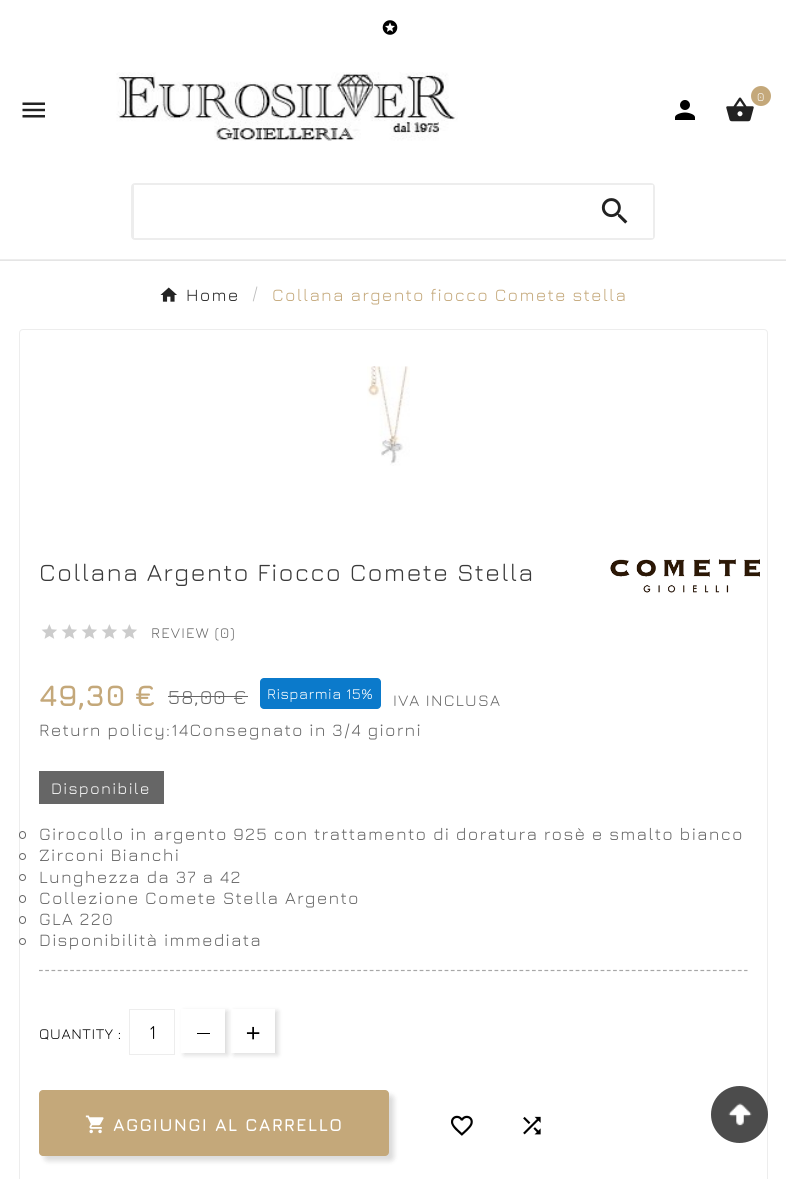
import math
import cairocffi as cairo

surface = cairo.ImageSurface(cairo.FORMAT_RGB24, 786, 1179)
ctx = cairo.Context(surface)
options = cairo.FontOptions()
options.set_hint_metrics(cairo.HINT_METRICS_OFF)
options.set_hint_style(cairo.HINT_STYLE_NONE)
ctx.set_font_options(options)
ctx.set_miter_limit(4)


def rgb(r, g, b):
    ctx.set_source_rgb(r / 255, g / 255, b / 255)


def face(family, size, italic, bold):
    ctx.select_font_face(family, cairo.FONT_SLANT_ITALIC if italic else cairo.FONT_SLANT_NORMAL, cairo.FONT_WEIGHT_BOLD if bold else cairo.FONT_WEIGHT_NORMAL)
    ctx.set_font_size(size)


def label(x, y, s):
    ctx.move_to(x, y)
    ctx.show_text(s)


def tracked(x, y, s, letter, word):
    ctx.move_to(x, y)
    for ch in s:
        ctx.show_text(ch)
        ctx.rel_move_to(letter + word * (ch == ' '), 0)


def rect(x, y, w, h):
    ctx.rectangle(x, y, w, h)
    ctx.fill()


def rrect(x, y, w, h, r):
    ctx.new_sub_path()
    for i, (u, v) in enumerate([(x + w - r, y + h - r), (x + r, y + h - r), (x + r, y + r), (x + w - r, y + r)]):
        ctx.arc(u, v, r, i * math.pi / 2, (i + 1) * math.pi / 2)
    ctx.close_path()


def soft_shadow(x, y, w, h, r, blur, alpha):
    ctx.push_group_with_content(cairo.CONTENT_ALPHA)
    ctx.set_operator(cairo.OPERATOR_SOURCE)
    for i in range(15, -16, -2):
        e = blur * i / 6
        if min(w, h) + 2 * e > 0:
            ctx.set_source_rgba(0, 0, 0, alpha * math.erfc((i - 1) / 8.5) / 2)
            rrect(x - e, y - e, w + 2 * e, h + 2 * e, max(0, min(r + e + blur * .6, min(w, h) / 2 + e)))
            ctx.fill()
    ctx.mask(ctx.pop_group())


def image(path, x, y, w, h):
    ctx.save()
    ctx.set_source_surface(cairo.ImageSurface.create_from_png(path), x, y)
    ctx.rectangle(x, y, w, h)
    ctx.fill()
    ctx.restore()


rgb(255, 255, 255)
ctx.paint()
rgb(229, 229, 229)
rect(0, 260, 786, 1)
rgb(237, 237, 237)
rect(0, 259, 786, 1)
image('image0.png', 382, 20, 16, 15)
image('image1.png', 116, 72, 342, 69)
image('image2.png', 726, 97, 28, 25)
rgb(196, 168, 122)
ctx.arc(761, 96, 10, 0, 2 * math.pi)
ctx.fill()
face('Jura', 12, 0, 0)
rgb(255, 255, 255)
tracked(757, 101, '0', 1.25, 0)
image('image3.png', 675, 100, 20, 20)
image('image4.png', 22, 102, 23, 16)
rrect(132.5, 184.5, 521, 54, 2.5)
rgb(237, 237, 237)
ctx.set_line_width(3)
ctx.stroke()
rgb(255, 255, 255)
rect(134, 185, 519, 53)
image('image5.png', 601, 198, 27, 26)
image('image6.png', 160, 287, 17, 15)
face('Jura', 17.5, 0, 0)
rgb(35, 35, 35)
tracked(186, 301, 'Home', 1.25, 0)
rgb(189, 189, 189)
tracked(252, 299, '/', 1.25, 0)
rgb(196, 168, 122)
tracked(272, 301, 'Collana argento fiocco Comete stella', 1.25, 0)
rrect(19.5, 329.5, 748, 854, 3.5)
rgb(237, 237, 237)
ctx.set_line_width(1)
ctx.stroke()
image('image7.png', 367, 366, 43, 100)
face('Jura', 25, 0, 0)
rgb(58, 58, 58)
tracked(39, 581, 'Collana Argento Fiocco Comete Stella', 1.25, 0)
image('image8.png', 610, 559, 150, 34)
image('image9.png', 41, 624, 16, 15)
image('image9.png', 61, 624, 16, 15)
image('image9.png', 81, 624, 16, 15)
image('image9.png', 101, 624, 16, 15)
image('image9.png', 121, 624, 16, 15)
face('Jura', 15, 0, 0)
rgb(102, 102, 102)
tracked(151, 638, 'REVIEW (0)', 1.25, 0)
face('Jura', 30, 0, 1)
rgb(196, 168, 122)
label(39, 706, '49,30 €')
face('Jura', 20, 0, 0)
rgb(102, 102, 102)
tracked(168, 704, '58,00 €', 1.25, 0)
rect(168, 696, 80, 1)
rgb(11, 122, 203)
rrect(260, 678, 121, 31, 4)
ctx.fill()
face('Jura', 15, 0, 0)
rgb(255, 255, 255)
tracked(267, 699, 'Risparmia 15%', 0.5, 0)
face('Jura', 16.25, 0, 0)
rgb(102, 102, 102)
tracked(393, 706, 'IVA INCLUSA', 1.25, 0)
face('Jura', 17.5, 0, 0)
tracked(39, 736, 'Return policy:14Consegnato in 3/4 giorni', 1.25, 0)
rect(39, 771, 125, 33)
face('Jura', 16.25, 0, 0)
rgb(255, 255, 255)
tracked(51, 794, 'Disponibile', 1.25, 0)
rrect(19.5, 831.5, 6, 7, 3)
rgb(102, 102, 102)
ctx.stroke()
face('Jura', 17.5, 0, 0)
tracked(39, 840, 'Girocollo in argento 925 con trattamento di doratura rosè e smalto bianco', 1.25, 0)
ctx.new_path()
ctx.arc(22.5, 856.5, 3, 0, 2 * math.pi)
ctx.stroke()
tracked(39, 861, 'Zirconi Bianchi', 1.25, 0)
ctx.new_path()
ctx.arc(22.5, 877.5, 3, 0, 2 * math.pi)
ctx.stroke()
tracked(39, 883, 'Lunghezza da 37 a 42', 1.25, 0)
rrect(19.5, 895.5, 6, 7, 3)
ctx.stroke()
tracked(39, 904, 'Collezione Comete Stella Argento', 1.25, 0)
rrect(19.5, 916.5, 6, 7, 3)
ctx.stroke()
tracked(39, 925, 'GLA 220', 1.25, 0)
ctx.new_path()
ctx.arc(22.5, 941.5, 3, 0, 2 * math.pi)
ctx.stroke()
tracked(39, 946, 'Disponibilità immediata', 1.25, 0)
ctx.new_path()
ctx.move_to(39, 970.5)
ctx.line_to(747.5, 970.5)
rgb(167, 167, 167)
ctx.set_line_width(1.2)
ctx.set_dash([3.75, 2.49])
ctx.stroke()
face('Jura', 15, 0, 0)
rgb(0, 0, 0)
tracked(39, 1039, 'QUANTITY :', 0.6, 0)
ctx.rectangle(129.5, 1009.5, 45, 45)
rgb(237, 237, 237)
ctx.set_line_width(1)
ctx.set_dash([])
ctx.stroke()
face('Jura', 20, 0, 0)
rgb(0, 0, 0)
label(149, 1039, '1')
rgb(0, 0, 0)
soft_shadow(234, 1011, 44, 44, 0, 2.5, 0.14)
rgb(255, 255, 255)
rect(231, 1009, 44, 44)
rgb(0, 0, 0)
soft_shadow(184, 1011, 44, 44, 0, 2.5, 0.14)
rgb(255, 255, 255)
rect(181, 1009, 44, 44)
rgb(0, 0, 0)
rect(197, 1033, 13, 1)
image('image10.png', 246, 1026, 14, 14)
rgb(0, 0, 0)
soft_shadow(44, 1095, 350, 66, 4, 2.5, 0.14)
rgb(196, 168, 122)
rrect(39, 1090, 350, 66, 4)
ctx.fill()
image('image11.png', 85, 1115, 19, 19)
face('Jura', 17.5, 0, 1)
rgb(255, 255, 255)
tracked(113, 1131, 'AGGIUNGI AL CARRELLO', 1.25, 0)
image('image12.png', 451, 1115, 22, 21)
image('image13.png', 523, 1116, 18, 19)
rgb(76, 76, 76)
ctx.arc(739.5, 1114.5, 28.5, 0, 2 * math.pi)
ctx.fill()
image('image14.png', 728, 1103, 24, 23)
surface.write_to_png('render.png')
